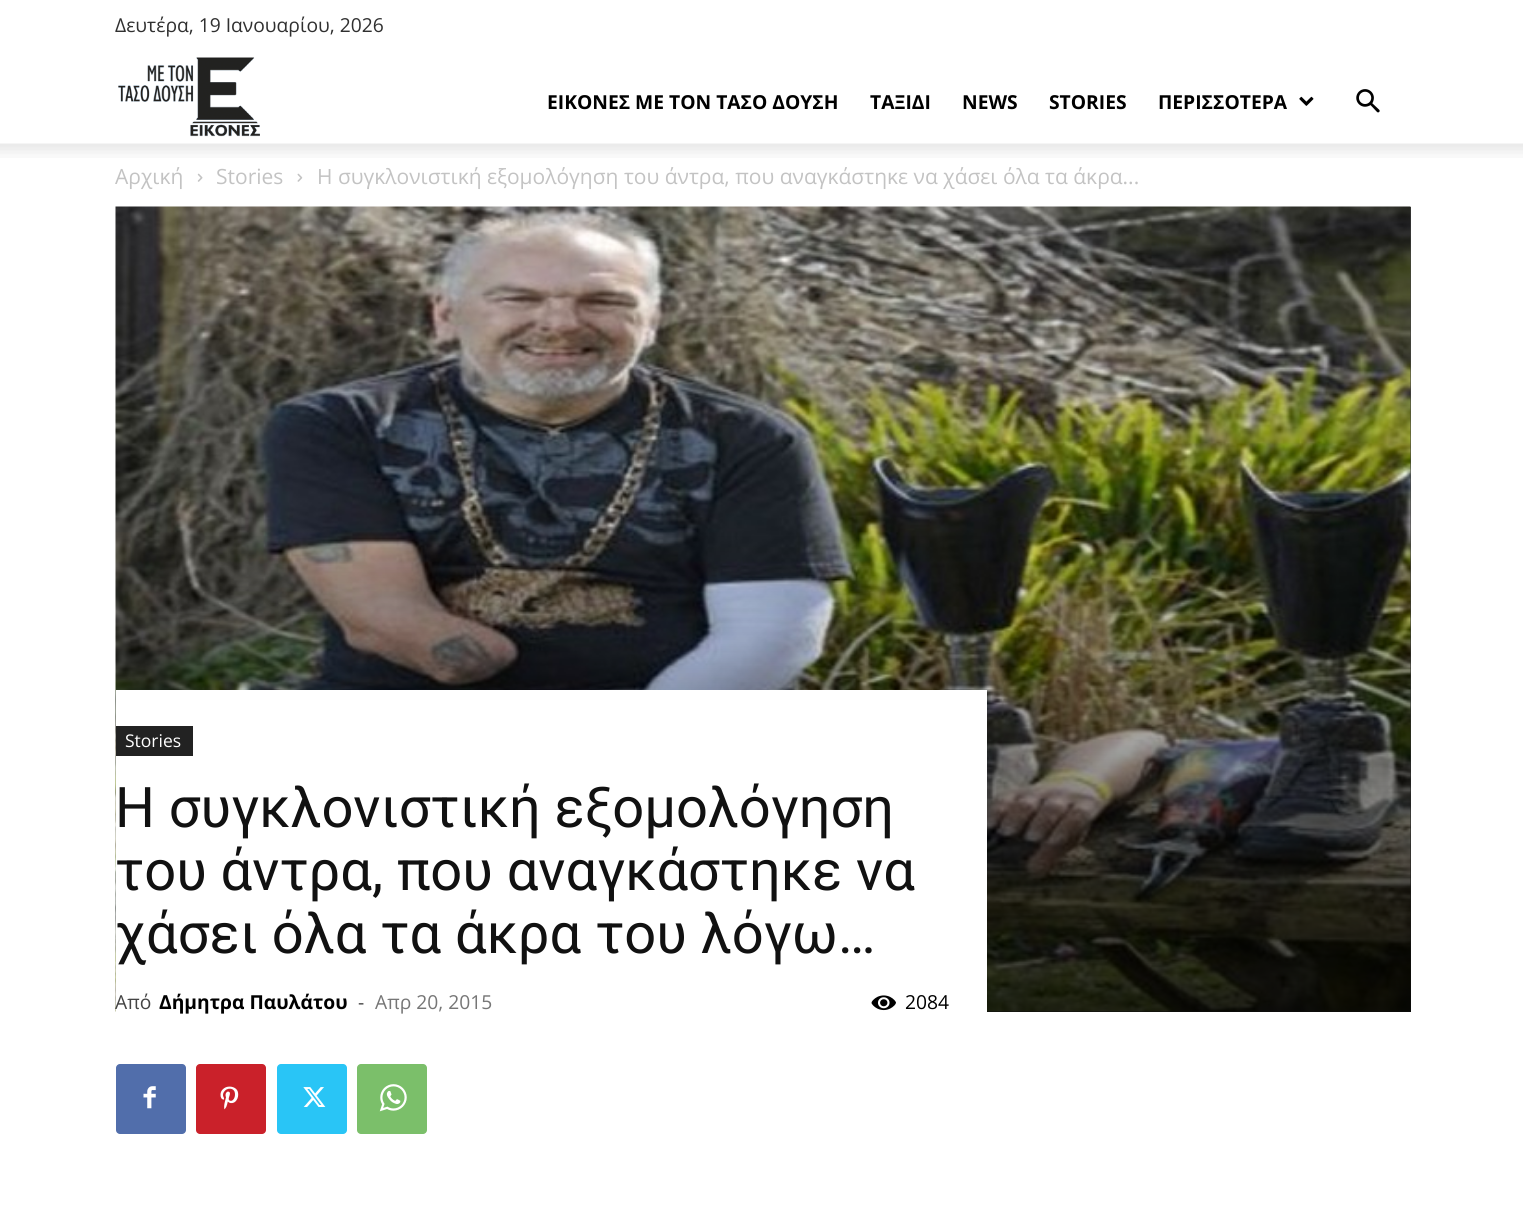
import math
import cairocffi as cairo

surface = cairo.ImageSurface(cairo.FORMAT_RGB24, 1523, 1209)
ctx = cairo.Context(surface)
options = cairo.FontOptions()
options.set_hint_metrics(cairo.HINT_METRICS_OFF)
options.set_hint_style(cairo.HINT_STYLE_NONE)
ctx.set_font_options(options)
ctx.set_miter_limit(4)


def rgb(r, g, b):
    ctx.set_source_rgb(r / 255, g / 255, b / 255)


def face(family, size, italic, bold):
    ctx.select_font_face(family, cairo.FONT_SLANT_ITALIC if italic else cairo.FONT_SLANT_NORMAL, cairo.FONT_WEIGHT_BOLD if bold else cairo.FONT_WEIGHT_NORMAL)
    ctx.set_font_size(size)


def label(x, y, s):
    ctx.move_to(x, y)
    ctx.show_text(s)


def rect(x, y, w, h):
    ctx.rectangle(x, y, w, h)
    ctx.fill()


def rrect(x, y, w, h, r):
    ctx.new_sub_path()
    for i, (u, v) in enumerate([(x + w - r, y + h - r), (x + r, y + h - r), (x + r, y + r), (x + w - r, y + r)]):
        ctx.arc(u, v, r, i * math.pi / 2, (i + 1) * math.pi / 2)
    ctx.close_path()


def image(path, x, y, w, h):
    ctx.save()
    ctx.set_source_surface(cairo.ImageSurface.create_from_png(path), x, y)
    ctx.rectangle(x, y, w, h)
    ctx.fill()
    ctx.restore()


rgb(255, 255, 255)
ctx.paint()
face('Open Sans', 19.25, 0, 0)
rgb(48, 48, 48)
label(115, 32, 'Δευτέρα, 19 Ιανουαρίου, 2026')
image('image0.png', 118, 57, 142, 80)
face('Open Sans', 19.25, 0, 1)
rgb(0, 0, 0)
label(547, 109, 'ΕΙΚΟΝΕΣ ΜΕ ΤΟΝ TΑΣΟ ΔΟΥΣΗ')
label(870, 109, 'ΤΑΞΙΔΙ')
label(962, 109, 'NEWS')
label(1049, 109, 'STORIES')
label(1158, 109, 'ΠΕΡΙΣΣΟΤΕΡΑ')
image('image1.png', 1299, 96, 15, 10)
image('image2.png', 1356, 89, 24, 24)
image('image3.png', 0, 143, 1523, 15)
face('Open Sans', 21, 0, 0)
rgb(195, 195, 195)
label(115, 184, 'Αρχική')
image('image4.png', 197, 173, 6, 9)
label(216, 184, 'Stories')
image('image5.png', 297, 173, 6, 9)
label(317, 184, 'Η συγκλονιστική εξομολόγηση του άντρα, που αναγκάστηκε να χάσει όλα τα άκρα...')
rgb(68, 68, 68)
rect(987, 207, 424, 805)
image('image6.png', 115, 206, 1296, 806)
gradient = cairo.LinearGradient(763, 523, 763, 1012)
gradient.add_color_stop_rgba(0, 0, 0, 0, 0)
gradient.add_color_stop_rgba(1, 0, 0, 0, 0.8)
ctx.set_source(gradient)
rect(116, 536, 1295, 476)
rgb(255, 255, 255)
rect(116, 690, 871, 322)
rgb(34, 34, 34)
rect(116, 726, 77, 30)
face('Open Sans', 17.5, 0, 0)
rgb(255, 255, 255)
label(125, 747, 'Stories')
face('Roboto', 56, 0, 0)
rgb(17, 17, 17)
label(115, 827, 'Η συγκλονιστική εξομολόγηση')
label(115, 890, 'του άντρα, που αναγκάστηκε να')
label(115, 953, 'χάσει όλα τα άκρα του λόγω…')
face('Open Sans', 19.25, 0, 0)
rgb(68, 68, 68)
label(115, 1009, 'Από')
face('Open Sans', 19.25, 0, 1)
rgb(0, 0, 0)
label(159, 1009, 'Δήμητρα Παυλάτου')
face('Open Sans', 19.25, 0, 0)
rgb(68, 68, 68)
label(358, 1009, '-')
rgb(118, 118, 118)
label(375, 1009, 'Απρ 20, 2015')
image('image7.png', 871, 995, 25, 16)
rgb(0, 0, 0)
label(905, 1009, '2084')
rgb(81, 110, 171)
rrect(116, 1064, 70, 70, 4)
ctx.fill()
image('image8.png', 143, 1086, 13, 23)
rgb(202, 33, 42)
rrect(196, 1064, 70, 70, 4)
ctx.fill()
image('image9.png', 220, 1086, 19, 24)
rgb(41, 197, 246)
rrect(277, 1064, 70, 70, 4)
ctx.fill()
image('image10.png', 303, 1087, 23, 20)
rgb(123, 191, 106)
rrect(357, 1064, 70, 70, 4)
ctx.fill()
image('image11.png', 379, 1084, 28, 28)
surface.write_to_png('render.png')
